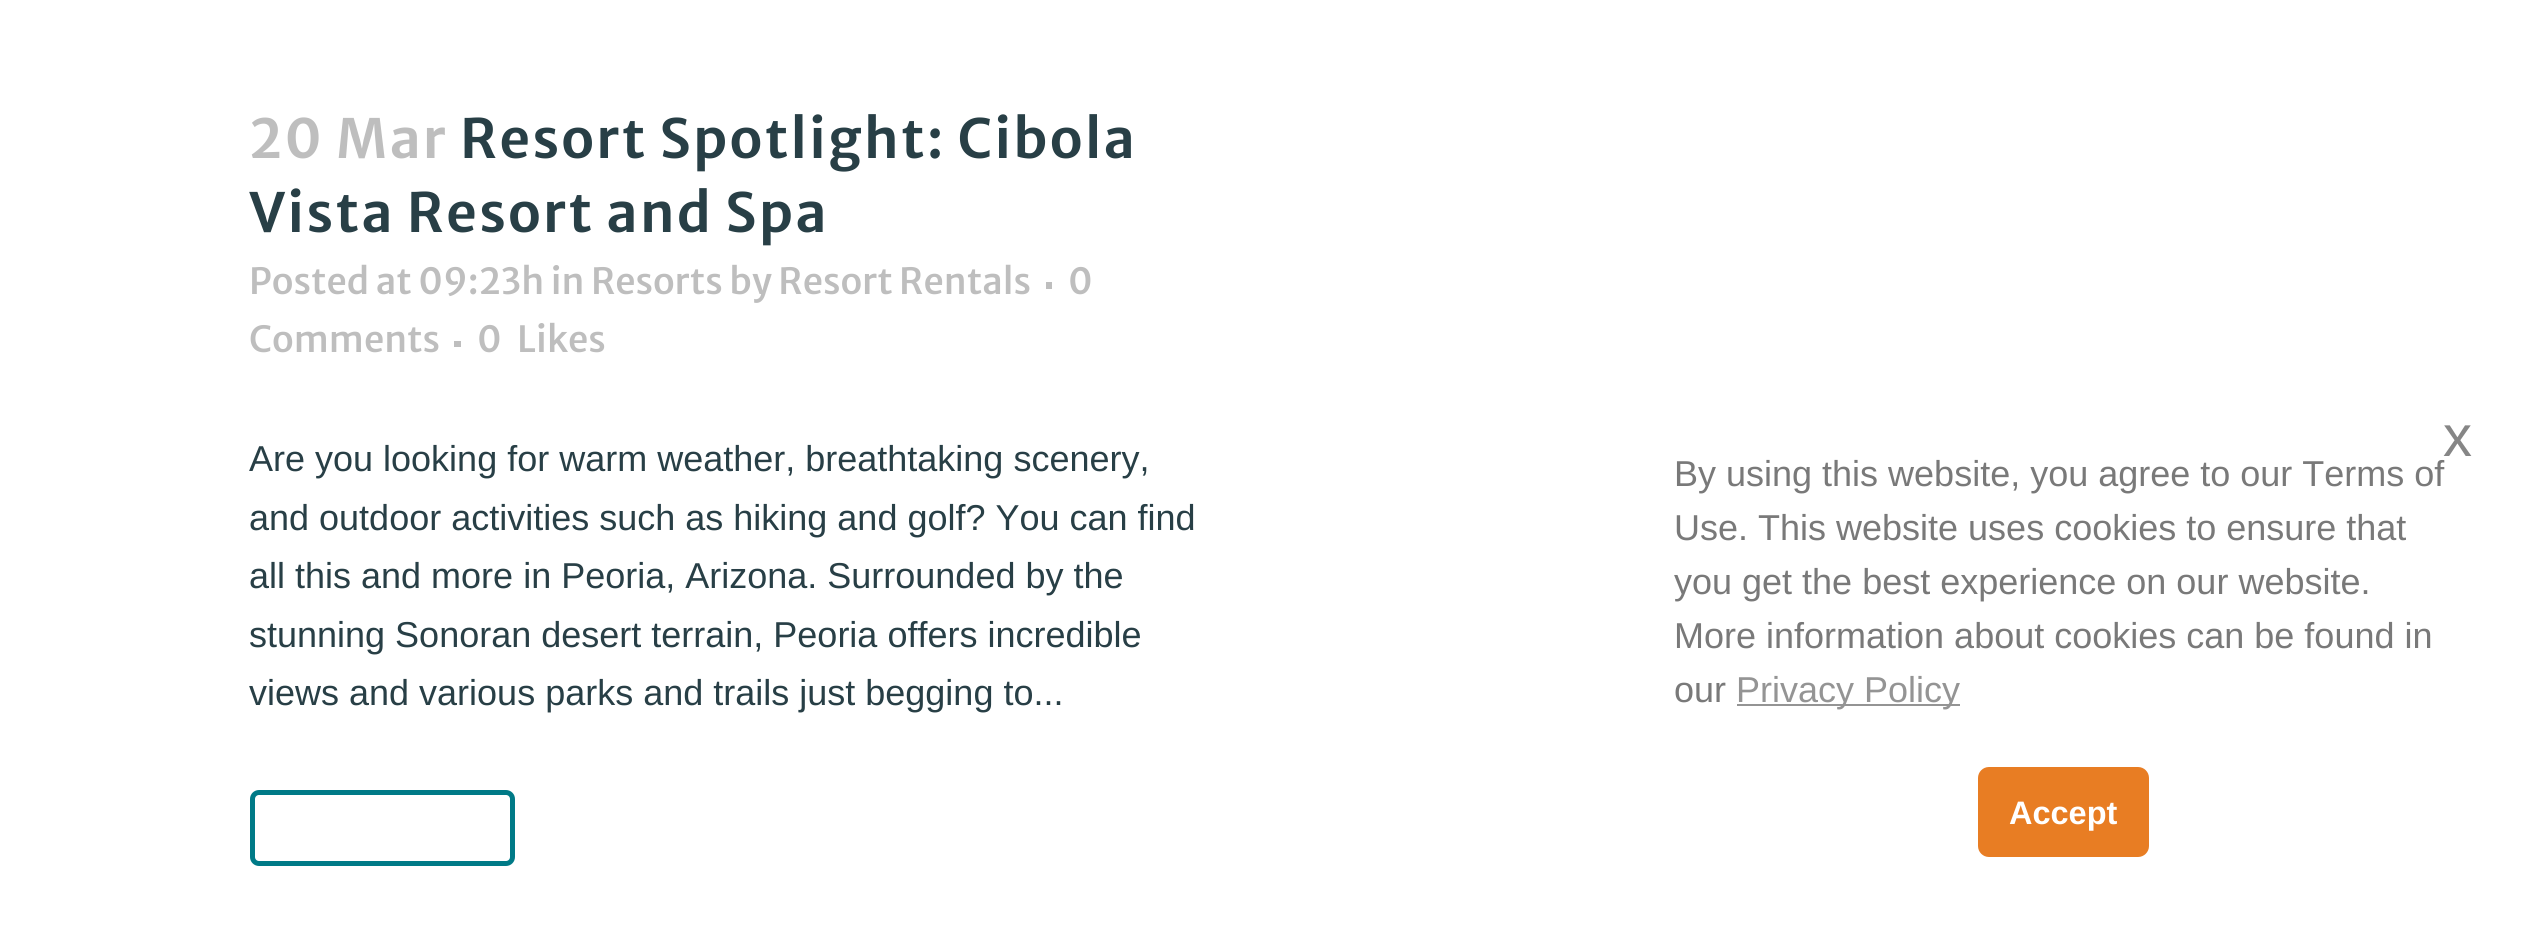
import math
import cairocffi as cairo

surface = cairo.ImageSurface(cairo.FORMAT_RGB24, 2530, 936)
ctx = cairo.Context(surface)
options = cairo.FontOptions()
options.set_hint_metrics(cairo.HINT_METRICS_OFF)
options.set_hint_style(cairo.HINT_STYLE_NONE)
ctx.set_font_options(options)
ctx.set_miter_limit(4)


def rgb(r, g, b):
    ctx.set_source_rgb(r / 255, g / 255, b / 255)


def face(family, size, italic, bold):
    ctx.select_font_face(family, cairo.FONT_SLANT_ITALIC if italic else cairo.FONT_SLANT_NORMAL, cairo.FONT_WEIGHT_BOLD if bold else cairo.FONT_WEIGHT_NORMAL)
    ctx.set_font_size(size)


def label(x, y, s):
    ctx.move_to(x, y)
    ctx.show_text(s)


def tracked(x, y, s, letter, word):
    ctx.move_to(x, y)
    for ch in s:
        ctx.show_text(ch)
        ctx.rel_move_to(letter + word * (ch == ' '), 0)


def rect(x, y, w, h):
    ctx.rectangle(x, y, w, h)
    ctx.fill()


def rrect(x, y, w, h, r):
    ctx.new_sub_path()
    for i, (u, v) in enumerate([(x + w - r, y + h - r), (x + r, y + h - r), (x + r, y + r), (x + w - r, y + r)]):
        ctx.arc(u, v, r, i * math.pi / 2, (i + 1) * math.pi / 2)
    ctx.close_path()


rgb(255, 255, 255)
ctx.paint()
face('Merriweather Sans SemiBold', 54, 0, 0)
rgb(190, 190, 190)
tracked(249, 158, '20 Mar', 2.25, 0)
rgb(40, 63, 70)
tracked(460, 158, 'Resort Spotlight: Cibola', 2.25, 0)
tracked(249, 232, 'Vista Resort and Spa', 2.25, 0)
face('Merriweather Sans Medium', 36, 0, 0)
rgb(190, 190, 190)
label(249, 294, 'Posted at 09:23h in Resorts by Resort Rentals')
rect(1046, 282, 6, 7)
label(1068, 294, '0')
label(249, 352, 'Comments')
rect(454, 341, 7, 6)
label(477, 352, '0')
label(517, 352, 'Likes')
face('Liberation Sans', 36, 0, 0)
rgb(40, 63, 70)
label(249, 471, 'Are you looking for warm weather, breathtaking scenery,')
label(249, 530, 'and outdoor activities such as hiking and golf? You can find')
label(249, 588, 'all this and more in Peoria, Arizona. Surrounded by the')
label(249, 647, 'stunning Sonoran desert terrain, Peoria offers incredible')
label(249, 705, 'views and various parks and trails just begging to...')
rrect(252.5, 792.5, 260, 71, 6.5)
rgb(0, 122, 135)
ctx.set_line_width(5)
ctx.stroke()
face('Liberation Sans', 58, 0, 0)
rgb(134, 134, 134)
label(2443, 456, 'x')
face('Liberation Sans', 36, 0, 0)
rgb(121, 121, 121)
label(1674, 486, 'By using this website, you agree to our Terms of')
label(1674, 540, 'Use. This website uses cookies to ensure that')
label(1674, 594, 'you get the best experience on our website.')
label(1674, 648, 'More information about cookies can be found in')
label(1674, 702, 'our')
rgb(148, 148, 148)
rect(1737, 704, 223, 2)
label(1736, 702, 'Privacy Policy')
rgb(232, 125, 35)
rrect(1978, 767, 171, 90, 11)
ctx.fill()
face('Liberation Sans', 32.5, 0, 1)
rgb(255, 255, 255)
label(2009, 824, 'Accept')
surface.write_to_png('render.png')
